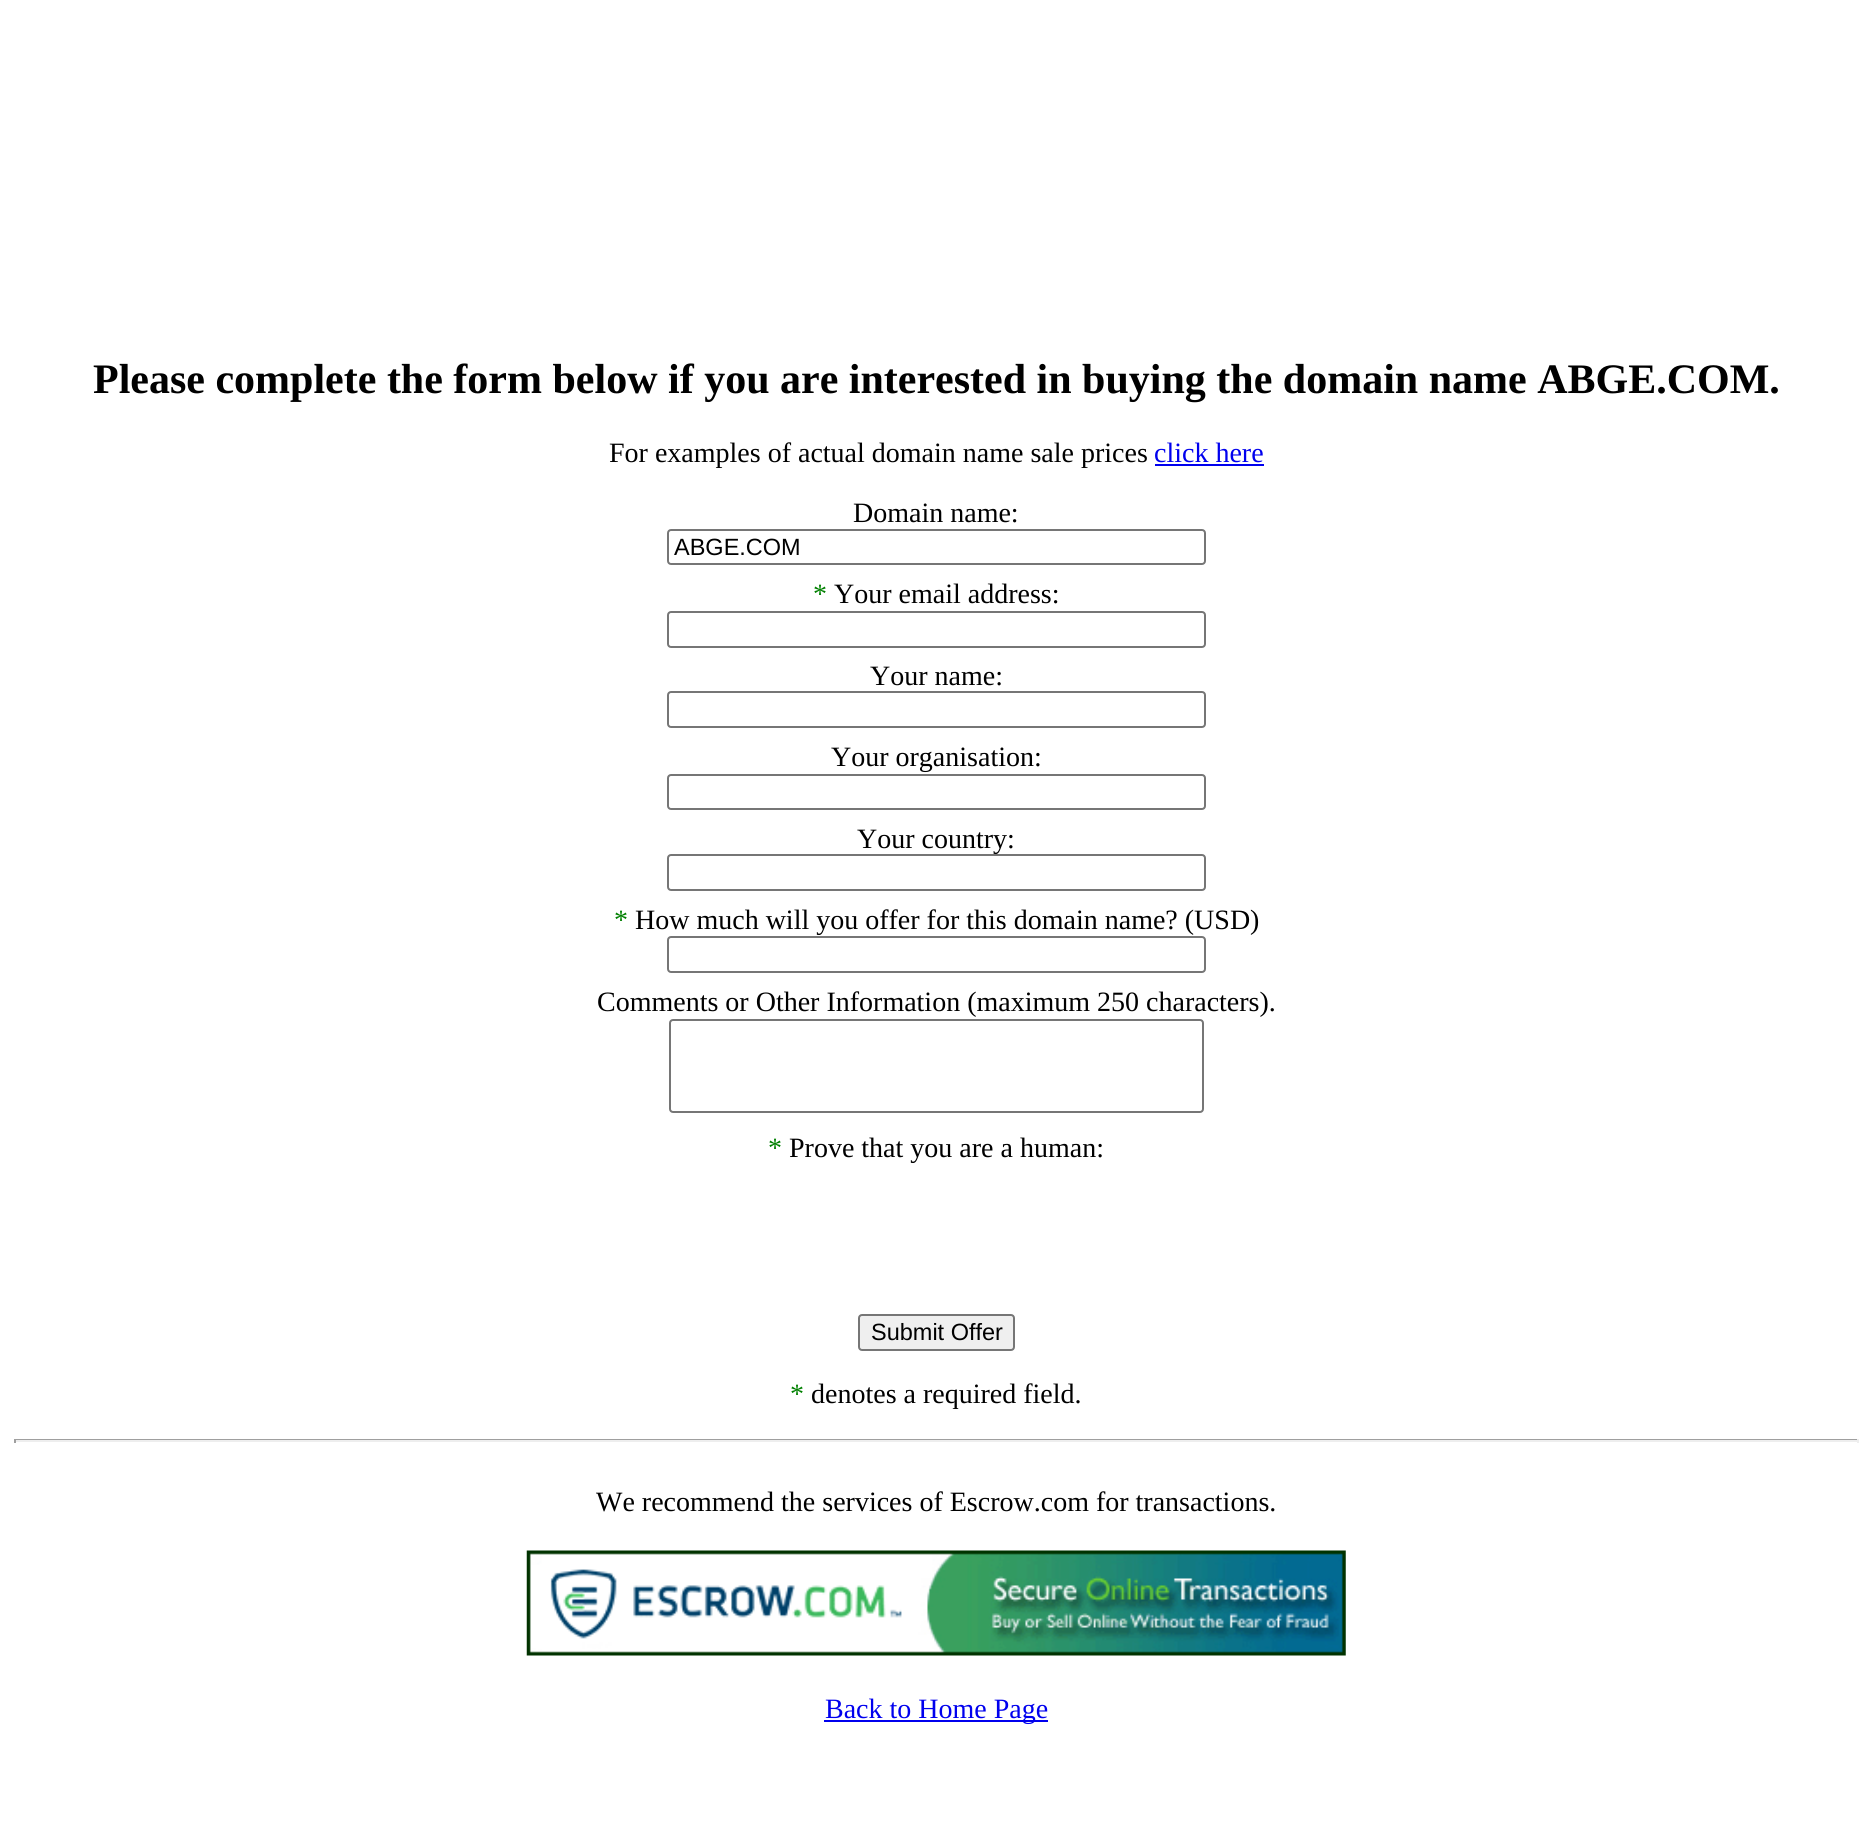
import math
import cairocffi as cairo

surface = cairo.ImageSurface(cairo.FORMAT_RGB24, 1871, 1829)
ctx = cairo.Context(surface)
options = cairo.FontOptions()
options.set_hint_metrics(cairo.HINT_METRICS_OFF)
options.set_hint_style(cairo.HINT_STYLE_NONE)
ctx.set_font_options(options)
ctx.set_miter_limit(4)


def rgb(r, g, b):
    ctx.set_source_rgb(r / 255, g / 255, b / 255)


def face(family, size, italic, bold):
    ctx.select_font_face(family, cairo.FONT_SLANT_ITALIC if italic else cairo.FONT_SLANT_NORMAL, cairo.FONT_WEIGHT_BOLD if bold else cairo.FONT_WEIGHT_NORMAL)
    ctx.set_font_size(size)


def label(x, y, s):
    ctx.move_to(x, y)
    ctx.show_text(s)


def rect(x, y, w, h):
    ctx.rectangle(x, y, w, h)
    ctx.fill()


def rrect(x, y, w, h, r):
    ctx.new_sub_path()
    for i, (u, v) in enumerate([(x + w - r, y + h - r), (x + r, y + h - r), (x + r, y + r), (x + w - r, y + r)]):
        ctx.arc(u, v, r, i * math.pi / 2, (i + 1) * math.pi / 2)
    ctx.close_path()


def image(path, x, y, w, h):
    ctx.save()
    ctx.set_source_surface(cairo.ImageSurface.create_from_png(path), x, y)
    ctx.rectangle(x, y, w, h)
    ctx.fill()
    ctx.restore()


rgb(255, 255, 255)
ctx.paint()
face('Liberation Serif', 42, 0, 1)
rgb(0, 0, 0)
label(93, 393, 'Please complete the form below if you are interested in buying the domain name ABGE.COM.')
face('Liberation Serif', 28, 0, 0)
label(609, 462, 'For examples of actual domain name sale prices')
rgb(0, 0, 238)
label(1154, 462, 'click here')
rect(1155, 464, 109, 2)
rgb(0, 0, 0)
label(853, 522, 'Domain name:')
rrect(668, 530, 537, 34, 3)
rgb(118, 118, 118)
ctx.stroke()
face('Liberation Sans', 23.5, 0, 0)
rgb(0, 0, 0)
label(674, 555, 'ABGE.COM')
face('Liberation Serif', 28, 0, 0)
rgb(0, 128, 0)
label(813, 603, '*')
rgb(0, 0, 0)
label(834, 603, 'Your email address:')
rrect(668, 612, 537, 35, 3)
rgb(118, 118, 118)
ctx.stroke()
rgb(0, 0, 0)
label(870, 685, 'Your name:')
rrect(668, 692, 537, 35, 3)
rgb(118, 118, 118)
ctx.stroke()
rgb(0, 0, 0)
label(831, 766, 'Your organisation:')
rrect(668, 775, 537, 34, 3)
rgb(118, 118, 118)
ctx.stroke()
rgb(0, 0, 0)
label(857, 848, 'Your country:')
rgb(255, 255, 255)
rrect(668, 855, 537, 35, 3)
ctx.fill_preserve()
rgb(118, 118, 118)
ctx.stroke()
rgb(0, 128, 0)
label(614, 929, '*')
rgb(0, 0, 0)
label(635, 929, 'How much will you offer for this domain name? (USD)')
rrect(668, 937, 537, 35, 3)
rgb(118, 118, 118)
ctx.stroke()
rgb(0, 0, 0)
label(597, 1011, 'Comments or Other Information (maximum 250 characters).')
rrect(670, 1020, 533, 92, 3)
rgb(118, 118, 118)
ctx.stroke()
rgb(0, 128, 0)
label(768, 1157, '*')
rgb(0, 0, 0)
label(789, 1157, 'Prove that you are a human:')
rgb(239, 239, 239)
rrect(859, 1315, 155, 35, 3)
ctx.fill_preserve()
rgb(118, 118, 118)
ctx.stroke()
face('Liberation Sans', 23.5, 0, 0)
rgb(0, 0, 0)
label(871, 1340, 'Submit Offer')
face('Liberation Serif', 28, 0, 0)
rgb(0, 128, 0)
label(790, 1403, '*')
rgb(0, 0, 0)
label(811, 1403, 'denotes a required field.')
rgb(159, 159, 159)
rect(14, 1439, 1845, 1)
rgb(238, 238, 238)
rect(1857, 1439, 2, 4)
rect(14, 1440, 1845, 2)
rgb(159, 159, 159)
rect(14, 1439, 2, 4)
rgb(0, 0, 0)
label(596, 1511, 'We recommend the services of Escrow.com for transactions.')
image('image0.png', 526, 1550, 820, 106)
rgb(0, 0, 238)
rect(824, 1720, 224, 2)
label(825, 1718, 'Back to Home Page')
surface.write_to_png('render.png')
